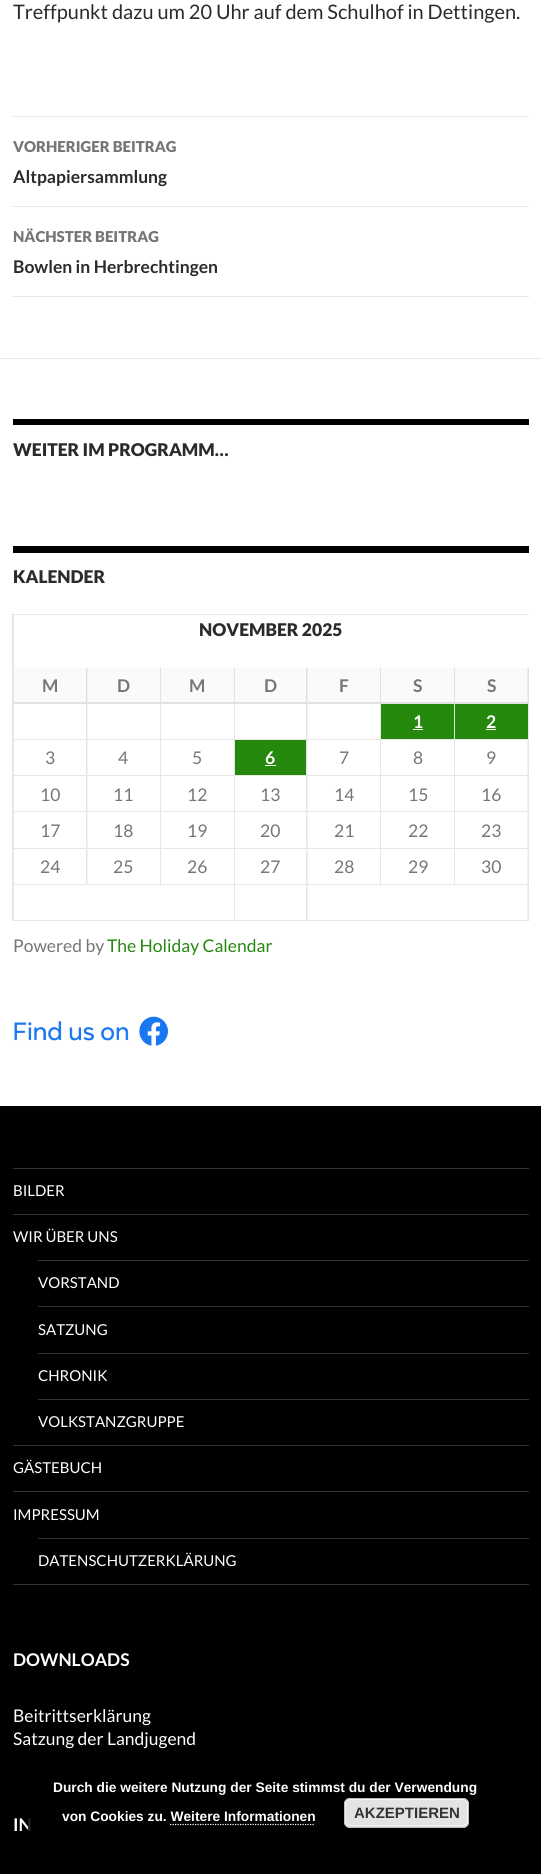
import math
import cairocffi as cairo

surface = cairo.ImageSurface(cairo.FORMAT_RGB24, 541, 1874)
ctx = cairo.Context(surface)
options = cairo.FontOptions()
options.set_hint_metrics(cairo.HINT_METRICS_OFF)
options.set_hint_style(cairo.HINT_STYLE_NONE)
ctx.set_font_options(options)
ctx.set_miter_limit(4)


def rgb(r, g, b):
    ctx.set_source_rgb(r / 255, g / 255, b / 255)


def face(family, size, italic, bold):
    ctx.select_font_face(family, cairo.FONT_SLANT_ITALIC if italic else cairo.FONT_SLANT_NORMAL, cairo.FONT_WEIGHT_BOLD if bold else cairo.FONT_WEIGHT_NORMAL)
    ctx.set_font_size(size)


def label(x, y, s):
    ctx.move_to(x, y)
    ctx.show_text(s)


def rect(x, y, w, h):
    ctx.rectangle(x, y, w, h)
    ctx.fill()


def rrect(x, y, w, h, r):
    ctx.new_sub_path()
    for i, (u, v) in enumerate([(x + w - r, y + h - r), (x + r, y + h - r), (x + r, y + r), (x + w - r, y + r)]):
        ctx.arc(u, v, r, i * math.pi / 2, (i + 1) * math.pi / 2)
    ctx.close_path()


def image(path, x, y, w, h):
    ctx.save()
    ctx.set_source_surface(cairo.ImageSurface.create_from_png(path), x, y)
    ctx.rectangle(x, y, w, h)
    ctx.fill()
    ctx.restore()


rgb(255, 255, 255)
ctx.paint()
face('Lato', 20, 0, 0)
rgb(43, 43, 43)
label(13, 19, 'Treffpunkt dazu um 20 Uhr auf dem Schulhof in Dettingen.')
rgb(230, 230, 230)
rect(13, 116, 516, 1)
rect(13, 206, 516, 1)
face('Lato Black', 15, 0, 0)
rgb(118, 118, 118)
label(13, 152, 'VORHERIGER BEITRAG')
face('Lato', 17.5, 0, 1)
rgb(43, 43, 43)
label(13, 183, 'Altpapiersammlung')
rgb(230, 230, 230)
rect(13, 296, 516, 1)
face('Lato Black', 15, 0, 0)
rgb(118, 118, 118)
label(13, 242, 'NÄCHSTER BEITRAG')
face('Lato', 17.5, 0, 1)
rgb(43, 43, 43)
label(13, 273, 'Bowlen in Herbrechtingen')
rgb(230, 230, 230)
rect(0, 358, 541, 1)
rgb(0, 0, 0)
rect(13, 419, 516, 6)
face('Lato Black', 17.5, 0, 0)
rgb(43, 43, 43)
label(13, 456, 'WEITER IM PROGRAMM…')
rgb(0, 0, 0)
rect(13, 546, 516, 7)
rgb(43, 43, 43)
label(13, 583, 'KALENDER')
rgb(230, 230, 230)
ctx.new_path()
ctx.move_to(12, 614)
ctx.line_to(529, 614)
ctx.line_to(529, 615)
ctx.line_to(14, 615)
ctx.close_path()
ctx.fill()
ctx.set_source_rgba(0, 0, 0, 0.1)
ctx.new_path()
ctx.move_to(12, 921)
ctx.line_to(12, 614)
ctx.line_to(14, 615)
ctx.line_to(14, 921)
ctx.close_path()
ctx.fill()
rgb(43, 43, 43)
label(199, 636, 'NOVEMBER 2025')
rgb(250, 250, 250)
rect(14, 668, 515, 36)
rgb(225, 225, 225)
ctx.new_path()
ctx.move_to(87.5, 667.5)
ctx.line_to(87.5, 704)
ctx.line_to(86, 702.5)
ctx.line_to(86, 667.5)
ctx.close_path()
ctx.fill()
ctx.set_source_rgba(0, 0, 0, 0.1)
ctx.new_path()
ctx.move_to(88, 704)
ctx.line_to(14, 704)
ctx.line_to(14, 702)
ctx.line_to(86, 702)
ctx.close_path()
ctx.fill()
face('Lato', 17.5, 0, 1)
rgb(118, 118, 118)
label(42, 692, 'M')
rgb(225, 225, 225)
ctx.new_path()
ctx.move_to(161, 667.5)
ctx.line_to(161, 704)
ctx.line_to(160, 702.5)
ctx.line_to(160, 667.5)
ctx.close_path()
ctx.fill()
ctx.set_source_rgba(0, 0, 0, 0.1)
ctx.new_path()
ctx.move_to(161, 704)
ctx.line_to(88, 704)
ctx.line_to(88, 702)
ctx.line_to(160, 702)
ctx.close_path()
ctx.fill()
rgb(118, 118, 118)
label(117, 692, 'D')
rgb(225, 225, 225)
ctx.new_path()
ctx.move_to(235, 667.5)
ctx.line_to(235, 704)
ctx.line_to(234, 702.5)
ctx.line_to(234, 667.5)
ctx.close_path()
ctx.fill()
ctx.set_source_rgba(0, 0, 0, 0.1)
ctx.new_path()
ctx.move_to(235, 704)
ctx.line_to(161, 704)
ctx.line_to(161, 702)
ctx.line_to(234, 702)
ctx.close_path()
ctx.fill()
rgb(118, 118, 118)
label(189, 692, 'M')
rgb(225, 225, 225)
ctx.new_path()
ctx.move_to(307.5, 667.5)
ctx.line_to(307.5, 704)
ctx.line_to(306, 702.5)
ctx.line_to(306, 667.5)
ctx.close_path()
ctx.fill()
ctx.set_source_rgba(0, 0, 0, 0.1)
ctx.new_path()
ctx.move_to(308, 704)
ctx.line_to(235, 704)
ctx.line_to(235, 702)
ctx.line_to(306, 702)
ctx.close_path()
ctx.fill()
rgb(118, 118, 118)
label(264, 692, 'D')
rgb(225, 225, 225)
ctx.new_path()
ctx.move_to(381, 667.5)
ctx.line_to(381, 704)
ctx.line_to(380, 702.5)
ctx.line_to(380, 667.5)
ctx.close_path()
ctx.fill()
ctx.set_source_rgba(0, 0, 0, 0.1)
ctx.new_path()
ctx.move_to(381, 704)
ctx.line_to(308, 704)
ctx.line_to(308, 702)
ctx.line_to(380, 702)
ctx.close_path()
ctx.fill()
rgb(118, 118, 118)
label(339, 692, 'F')
rgb(225, 225, 225)
ctx.new_path()
ctx.move_to(455, 667.5)
ctx.line_to(455, 704)
ctx.line_to(454, 702.5)
ctx.line_to(454, 667.5)
ctx.close_path()
ctx.fill()
ctx.set_source_rgba(0, 0, 0, 0.1)
ctx.new_path()
ctx.move_to(455, 704)
ctx.line_to(381, 704)
ctx.line_to(381, 702)
ctx.line_to(454, 702)
ctx.close_path()
ctx.fill()
rgb(118, 118, 118)
label(413, 692, 'S')
rgb(225, 225, 225)
ctx.new_path()
ctx.move_to(529, 667.5)
ctx.line_to(529, 704)
ctx.line_to(527.5, 702.5)
ctx.line_to(527.5, 667.5)
ctx.close_path()
ctx.fill()
ctx.set_source_rgba(0, 0, 0, 0.1)
ctx.new_path()
ctx.move_to(529, 704)
ctx.line_to(455, 704)
ctx.line_to(455, 702)
ctx.line_to(528, 702)
ctx.close_path()
ctx.fill()
rgb(118, 118, 118)
label(487, 692, 'S')
rgb(230, 230, 230)
ctx.new_path()
ctx.move_to(87.5, 704)
ctx.line_to(87.5, 740)
ctx.line_to(86, 739)
ctx.line_to(86, 704)
ctx.close_path()
ctx.fill()
ctx.set_source_rgba(0, 0, 0, 0.1)
ctx.new_path()
ctx.move_to(88, 740)
ctx.line_to(14, 740)
ctx.line_to(14, 739)
ctx.line_to(86, 739)
ctx.close_path()
ctx.fill()
rgb(230, 230, 230)
ctx.new_path()
ctx.move_to(161, 704)
ctx.line_to(161, 740)
ctx.line_to(160, 739)
ctx.line_to(160, 704)
ctx.close_path()
ctx.fill()
ctx.set_source_rgba(0, 0, 0, 0.1)
ctx.new_path()
ctx.move_to(161, 740)
ctx.line_to(88, 740)
ctx.line_to(88, 739)
ctx.line_to(160, 739)
ctx.close_path()
ctx.fill()
rgb(230, 230, 230)
ctx.new_path()
ctx.move_to(235, 704)
ctx.line_to(235, 740)
ctx.line_to(234, 739)
ctx.line_to(234, 704)
ctx.close_path()
ctx.fill()
ctx.set_source_rgba(0, 0, 0, 0.1)
ctx.new_path()
ctx.move_to(235, 740)
ctx.line_to(161, 740)
ctx.line_to(161, 739)
ctx.line_to(234, 739)
ctx.close_path()
ctx.fill()
rgb(230, 230, 230)
ctx.new_path()
ctx.move_to(307.5, 704)
ctx.line_to(307.5, 740)
ctx.line_to(306, 739)
ctx.line_to(306, 704)
ctx.close_path()
ctx.fill()
ctx.set_source_rgba(0, 0, 0, 0.1)
ctx.new_path()
ctx.move_to(308, 740)
ctx.line_to(235, 740)
ctx.line_to(235, 739)
ctx.line_to(306, 739)
ctx.close_path()
ctx.fill()
rgb(230, 230, 230)
ctx.new_path()
ctx.move_to(381, 704)
ctx.line_to(381, 740)
ctx.line_to(380, 739)
ctx.line_to(380, 704)
ctx.close_path()
ctx.fill()
ctx.set_source_rgba(0, 0, 0, 0.1)
ctx.new_path()
ctx.move_to(381, 740)
ctx.line_to(308, 740)
ctx.line_to(308, 739)
ctx.line_to(380, 739)
ctx.close_path()
ctx.fill()
rgb(230, 230, 230)
ctx.new_path()
ctx.move_to(455, 704)
ctx.line_to(455, 740)
ctx.line_to(454, 739)
ctx.line_to(454, 704)
ctx.close_path()
ctx.fill()
ctx.set_source_rgba(0, 0, 0, 0.1)
ctx.new_path()
ctx.move_to(455, 740)
ctx.line_to(381, 740)
ctx.line_to(381, 739)
ctx.line_to(454, 739)
ctx.close_path()
ctx.fill()
rgb(36, 137, 13)
rect(381, 704, 73, 35)
rgb(255, 255, 255)
label(413, 728, '1')
rect(413, 729, 10, 1)
rgb(230, 230, 230)
ctx.new_path()
ctx.move_to(529, 704)
ctx.line_to(529, 740)
ctx.line_to(527.5, 739)
ctx.line_to(527.5, 704)
ctx.close_path()
ctx.fill()
ctx.set_source_rgba(0, 0, 0, 0.1)
ctx.new_path()
ctx.move_to(529, 740)
ctx.line_to(455, 740)
ctx.line_to(455, 739)
ctx.line_to(528, 739)
ctx.close_path()
ctx.fill()
rgb(36, 137, 13)
rect(455, 704, 73, 35)
rgb(255, 255, 255)
label(486, 728, '2')
rect(486, 729, 10, 1)
rgb(230, 230, 230)
ctx.new_path()
ctx.move_to(87.5, 740)
ctx.line_to(87.5, 776)
ctx.line_to(86, 775)
ctx.line_to(86, 740)
ctx.close_path()
ctx.fill()
ctx.set_source_rgba(0, 0, 0, 0.1)
ctx.new_path()
ctx.move_to(88, 776)
ctx.line_to(14, 776)
ctx.line_to(14, 775)
ctx.line_to(86, 775)
ctx.close_path()
ctx.fill()
face('Lato', 17.5, 0, 0)
rgb(118, 118, 118)
label(45, 764, '3')
rgb(230, 230, 230)
ctx.new_path()
ctx.move_to(161, 740)
ctx.line_to(161, 776)
ctx.line_to(160, 775)
ctx.line_to(160, 740)
ctx.close_path()
ctx.fill()
ctx.set_source_rgba(0, 0, 0, 0.1)
ctx.new_path()
ctx.move_to(161, 776)
ctx.line_to(88, 776)
ctx.line_to(88, 775)
ctx.line_to(160, 775)
ctx.close_path()
ctx.fill()
rgb(118, 118, 118)
label(118, 764, '4')
rgb(230, 230, 230)
ctx.new_path()
ctx.move_to(235, 740)
ctx.line_to(235, 776)
ctx.line_to(234, 775)
ctx.line_to(234, 740)
ctx.close_path()
ctx.fill()
ctx.set_source_rgba(0, 0, 0, 0.1)
ctx.new_path()
ctx.move_to(235, 776)
ctx.line_to(161, 776)
ctx.line_to(161, 775)
ctx.line_to(234, 775)
ctx.close_path()
ctx.fill()
rgb(118, 118, 118)
label(192, 764, '5')
rgb(230, 230, 230)
ctx.new_path()
ctx.move_to(307.5, 740)
ctx.line_to(307.5, 776)
ctx.line_to(306, 775)
ctx.line_to(306, 740)
ctx.close_path()
ctx.fill()
ctx.set_source_rgba(0, 0, 0, 0.1)
ctx.new_path()
ctx.move_to(308, 776)
ctx.line_to(235, 776)
ctx.line_to(235, 775)
ctx.line_to(306, 775)
ctx.close_path()
ctx.fill()
rgb(36, 137, 13)
rect(235, 740, 71, 35)
face('Lato', 17.5, 0, 1)
rgb(255, 255, 255)
label(265, 764, '6')
rect(265, 765, 11, 1)
rgb(230, 230, 230)
ctx.new_path()
ctx.move_to(381, 740)
ctx.line_to(381, 776)
ctx.line_to(380, 775)
ctx.line_to(380, 740)
ctx.close_path()
ctx.fill()
ctx.set_source_rgba(0, 0, 0, 0.1)
ctx.new_path()
ctx.move_to(381, 776)
ctx.line_to(308, 776)
ctx.line_to(308, 775)
ctx.line_to(380, 775)
ctx.close_path()
ctx.fill()
face('Lato', 17.5, 0, 0)
rgb(118, 118, 118)
label(339, 764, '7')
rgb(230, 230, 230)
ctx.new_path()
ctx.move_to(455, 740)
ctx.line_to(455, 776)
ctx.line_to(454, 775)
ctx.line_to(454, 740)
ctx.close_path()
ctx.fill()
ctx.set_source_rgba(0, 0, 0, 0.1)
ctx.new_path()
ctx.move_to(455, 776)
ctx.line_to(381, 776)
ctx.line_to(381, 775)
ctx.line_to(454, 775)
ctx.close_path()
ctx.fill()
rgb(118, 118, 118)
label(413, 764, '8')
rgb(230, 230, 230)
ctx.new_path()
ctx.move_to(529, 740)
ctx.line_to(529, 776)
ctx.line_to(527.5, 775)
ctx.line_to(527.5, 740)
ctx.close_path()
ctx.fill()
ctx.set_source_rgba(0, 0, 0, 0.1)
ctx.new_path()
ctx.move_to(529, 776)
ctx.line_to(455, 776)
ctx.line_to(455, 775)
ctx.line_to(528, 775)
ctx.close_path()
ctx.fill()
rgb(118, 118, 118)
label(486, 764, '9')
rgb(230, 230, 230)
ctx.new_path()
ctx.move_to(87.5, 776)
ctx.line_to(87.5, 812.5)
ctx.line_to(86, 811)
ctx.line_to(86, 776)
ctx.close_path()
ctx.fill()
ctx.set_source_rgba(0, 0, 0, 0.1)
ctx.new_path()
ctx.move_to(88, 812)
ctx.line_to(14, 812)
ctx.line_to(14, 811)
ctx.line_to(86, 811)
ctx.close_path()
ctx.fill()
rgb(118, 118, 118)
label(40, 801, '10')
rgb(230, 230, 230)
ctx.new_path()
ctx.move_to(161, 776)
ctx.line_to(161, 812.5)
ctx.line_to(160, 811)
ctx.line_to(160, 776)
ctx.close_path()
ctx.fill()
ctx.set_source_rgba(0, 0, 0, 0.1)
ctx.new_path()
ctx.move_to(161, 812)
ctx.line_to(88, 812)
ctx.line_to(88, 811)
ctx.line_to(160, 811)
ctx.close_path()
ctx.fill()
rgb(118, 118, 118)
label(113, 801, '11')
rgb(230, 230, 230)
ctx.new_path()
ctx.move_to(235, 776)
ctx.line_to(235, 812.5)
ctx.line_to(234, 811)
ctx.line_to(234, 776)
ctx.close_path()
ctx.fill()
ctx.set_source_rgba(0, 0, 0, 0.1)
ctx.new_path()
ctx.move_to(235, 812)
ctx.line_to(161, 812)
ctx.line_to(161, 811)
ctx.line_to(234, 811)
ctx.close_path()
ctx.fill()
rgb(118, 118, 118)
label(187, 801, '12')
rgb(230, 230, 230)
ctx.new_path()
ctx.move_to(307.5, 776)
ctx.line_to(307.5, 812.5)
ctx.line_to(306, 811)
ctx.line_to(306, 776)
ctx.close_path()
ctx.fill()
ctx.set_source_rgba(0, 0, 0, 0.1)
ctx.new_path()
ctx.move_to(308, 812)
ctx.line_to(235, 812)
ctx.line_to(235, 811)
ctx.line_to(306, 811)
ctx.close_path()
ctx.fill()
rgb(118, 118, 118)
label(260, 801, '13')
rgb(230, 230, 230)
ctx.new_path()
ctx.move_to(381, 776)
ctx.line_to(381, 812.5)
ctx.line_to(380, 811)
ctx.line_to(380, 776)
ctx.close_path()
ctx.fill()
ctx.set_source_rgba(0, 0, 0, 0.1)
ctx.new_path()
ctx.move_to(381, 812)
ctx.line_to(308, 812)
ctx.line_to(308, 811)
ctx.line_to(380, 811)
ctx.close_path()
ctx.fill()
rgb(118, 118, 118)
label(334, 801, '14')
rgb(230, 230, 230)
ctx.new_path()
ctx.move_to(455, 776)
ctx.line_to(455, 812.5)
ctx.line_to(454, 811)
ctx.line_to(454, 776)
ctx.close_path()
ctx.fill()
ctx.set_source_rgba(0, 0, 0, 0.1)
ctx.new_path()
ctx.move_to(455, 812)
ctx.line_to(381, 812)
ctx.line_to(381, 811)
ctx.line_to(454, 811)
ctx.close_path()
ctx.fill()
rgb(118, 118, 118)
label(408, 801, '15')
rgb(230, 230, 230)
ctx.new_path()
ctx.move_to(529, 776)
ctx.line_to(529, 812.5)
ctx.line_to(527.5, 811)
ctx.line_to(527.5, 776)
ctx.close_path()
ctx.fill()
ctx.set_source_rgba(0, 0, 0, 0.1)
ctx.new_path()
ctx.move_to(529, 812)
ctx.line_to(455, 812)
ctx.line_to(455, 811)
ctx.line_to(528, 811)
ctx.close_path()
ctx.fill()
rgb(118, 118, 118)
label(481, 801, '16')
rgb(230, 230, 230)
ctx.new_path()
ctx.move_to(87.5, 812.5)
ctx.line_to(87.5, 849)
ctx.line_to(86, 847.5)
ctx.line_to(86, 812.5)
ctx.close_path()
ctx.fill()
ctx.set_source_rgba(0, 0, 0, 0.1)
ctx.new_path()
ctx.move_to(88, 849)
ctx.line_to(14, 849)
ctx.line_to(14, 848)
ctx.line_to(86, 848)
ctx.close_path()
ctx.fill()
rgb(118, 118, 118)
label(40, 837, '17')
rgb(230, 230, 230)
ctx.new_path()
ctx.move_to(161, 812.5)
ctx.line_to(161, 849)
ctx.line_to(160, 847.5)
ctx.line_to(160, 812.5)
ctx.close_path()
ctx.fill()
ctx.set_source_rgba(0, 0, 0, 0.1)
ctx.new_path()
ctx.move_to(161, 849)
ctx.line_to(88, 849)
ctx.line_to(88, 848)
ctx.line_to(160, 848)
ctx.close_path()
ctx.fill()
rgb(118, 118, 118)
label(113, 837, '18')
rgb(230, 230, 230)
ctx.new_path()
ctx.move_to(235, 812.5)
ctx.line_to(235, 849)
ctx.line_to(234, 847.5)
ctx.line_to(234, 812.5)
ctx.close_path()
ctx.fill()
ctx.set_source_rgba(0, 0, 0, 0.1)
ctx.new_path()
ctx.move_to(235, 849)
ctx.line_to(161, 849)
ctx.line_to(161, 848)
ctx.line_to(234, 848)
ctx.close_path()
ctx.fill()
rgb(118, 118, 118)
label(187, 837, '19')
rgb(230, 230, 230)
ctx.new_path()
ctx.move_to(307.5, 812.5)
ctx.line_to(307.5, 849)
ctx.line_to(306, 847.5)
ctx.line_to(306, 812.5)
ctx.close_path()
ctx.fill()
ctx.set_source_rgba(0, 0, 0, 0.1)
ctx.new_path()
ctx.move_to(308, 849)
ctx.line_to(235, 849)
ctx.line_to(235, 848)
ctx.line_to(306, 848)
ctx.close_path()
ctx.fill()
rgb(118, 118, 118)
label(260, 837, '20')
rgb(230, 230, 230)
ctx.new_path()
ctx.move_to(381, 812.5)
ctx.line_to(381, 849)
ctx.line_to(380, 847.5)
ctx.line_to(380, 812.5)
ctx.close_path()
ctx.fill()
ctx.set_source_rgba(0, 0, 0, 0.1)
ctx.new_path()
ctx.move_to(381, 849)
ctx.line_to(308, 849)
ctx.line_to(308, 848)
ctx.line_to(380, 848)
ctx.close_path()
ctx.fill()
rgb(118, 118, 118)
label(334, 837, '21')
rgb(230, 230, 230)
ctx.new_path()
ctx.move_to(455, 812.5)
ctx.line_to(455, 849)
ctx.line_to(454, 847.5)
ctx.line_to(454, 812.5)
ctx.close_path()
ctx.fill()
ctx.set_source_rgba(0, 0, 0, 0.1)
ctx.new_path()
ctx.move_to(455, 849)
ctx.line_to(381, 849)
ctx.line_to(381, 848)
ctx.line_to(454, 848)
ctx.close_path()
ctx.fill()
rgb(118, 118, 118)
label(408, 837, '22')
rgb(230, 230, 230)
ctx.new_path()
ctx.move_to(529, 812.5)
ctx.line_to(529, 849)
ctx.line_to(527.5, 847.5)
ctx.line_to(527.5, 812.5)
ctx.close_path()
ctx.fill()
ctx.set_source_rgba(0, 0, 0, 0.1)
ctx.new_path()
ctx.move_to(529, 849)
ctx.line_to(455, 849)
ctx.line_to(455, 848)
ctx.line_to(528, 848)
ctx.close_path()
ctx.fill()
rgb(118, 118, 118)
label(481, 837, '23')
rgb(230, 230, 230)
ctx.new_path()
ctx.move_to(87.5, 849)
ctx.line_to(87.5, 885)
ctx.line_to(86, 884)
ctx.line_to(86, 849)
ctx.close_path()
ctx.fill()
ctx.set_source_rgba(0, 0, 0, 0.1)
ctx.new_path()
ctx.move_to(88, 885)
ctx.line_to(14, 885)
ctx.line_to(14, 884)
ctx.line_to(86, 884)
ctx.close_path()
ctx.fill()
rgb(118, 118, 118)
label(40, 873, '24')
rgb(230, 230, 230)
ctx.new_path()
ctx.move_to(161, 849)
ctx.line_to(161, 885)
ctx.line_to(160, 884)
ctx.line_to(160, 849)
ctx.close_path()
ctx.fill()
ctx.set_source_rgba(0, 0, 0, 0.1)
ctx.new_path()
ctx.move_to(161, 885)
ctx.line_to(88, 885)
ctx.line_to(88, 884)
ctx.line_to(160, 884)
ctx.close_path()
ctx.fill()
rgb(118, 118, 118)
label(113, 873, '25')
rgb(230, 230, 230)
ctx.new_path()
ctx.move_to(235, 849)
ctx.line_to(235, 885)
ctx.line_to(234, 884)
ctx.line_to(234, 849)
ctx.close_path()
ctx.fill()
ctx.set_source_rgba(0, 0, 0, 0.1)
ctx.new_path()
ctx.move_to(235, 885)
ctx.line_to(161, 885)
ctx.line_to(161, 884)
ctx.line_to(234, 884)
ctx.close_path()
ctx.fill()
rgb(118, 118, 118)
label(187, 873, '26')
rgb(230, 230, 230)
ctx.new_path()
ctx.move_to(307.5, 849)
ctx.line_to(307.5, 885)
ctx.line_to(306, 884)
ctx.line_to(306, 849)
ctx.close_path()
ctx.fill()
ctx.set_source_rgba(0, 0, 0, 0.1)
ctx.new_path()
ctx.move_to(308, 885)
ctx.line_to(235, 885)
ctx.line_to(235, 884)
ctx.line_to(306, 884)
ctx.close_path()
ctx.fill()
rgb(118, 118, 118)
label(260, 873, '27')
rgb(230, 230, 230)
ctx.new_path()
ctx.move_to(381, 849)
ctx.line_to(381, 885)
ctx.line_to(380, 884)
ctx.line_to(380, 849)
ctx.close_path()
ctx.fill()
ctx.set_source_rgba(0, 0, 0, 0.1)
ctx.new_path()
ctx.move_to(381, 885)
ctx.line_to(308, 885)
ctx.line_to(308, 884)
ctx.line_to(380, 884)
ctx.close_path()
ctx.fill()
rgb(118, 118, 118)
label(334, 873, '28')
rgb(230, 230, 230)
ctx.new_path()
ctx.move_to(455, 849)
ctx.line_to(455, 885)
ctx.line_to(454, 884)
ctx.line_to(454, 849)
ctx.close_path()
ctx.fill()
ctx.set_source_rgba(0, 0, 0, 0.1)
ctx.new_path()
ctx.move_to(455, 885)
ctx.line_to(381, 885)
ctx.line_to(381, 884)
ctx.line_to(454, 884)
ctx.close_path()
ctx.fill()
rgb(118, 118, 118)
label(408, 873, '29')
rgb(230, 230, 230)
ctx.new_path()
ctx.move_to(529, 849)
ctx.line_to(529, 885)
ctx.line_to(527.5, 884)
ctx.line_to(527.5, 849)
ctx.close_path()
ctx.fill()
ctx.set_source_rgba(0, 0, 0, 0.1)
ctx.new_path()
ctx.move_to(529, 885)
ctx.line_to(455, 885)
ctx.line_to(455, 884)
ctx.line_to(528, 884)
ctx.close_path()
ctx.fill()
rgb(118, 118, 118)
label(481, 873, '30')
rgb(230, 230, 230)
ctx.new_path()
ctx.move_to(235, 885)
ctx.line_to(235, 921)
ctx.line_to(234, 920)
ctx.line_to(234, 885)
ctx.close_path()
ctx.fill()
ctx.set_source_rgba(0, 0, 0, 0.1)
ctx.new_path()
ctx.move_to(235, 921)
ctx.line_to(14, 921)
ctx.line_to(14, 920)
ctx.line_to(234, 920)
ctx.close_path()
ctx.fill()
rgb(230, 230, 230)
ctx.new_path()
ctx.move_to(307.5, 885)
ctx.line_to(307.5, 921)
ctx.line_to(306, 920)
ctx.line_to(306, 885)
ctx.close_path()
ctx.fill()
ctx.set_source_rgba(0, 0, 0, 0.1)
ctx.new_path()
ctx.move_to(308, 921)
ctx.line_to(235, 921)
ctx.line_to(235, 920)
ctx.line_to(306, 920)
ctx.close_path()
ctx.fill()
rgb(230, 230, 230)
ctx.new_path()
ctx.move_to(529, 885)
ctx.line_to(529, 921)
ctx.line_to(527.5, 920)
ctx.line_to(527.5, 885)
ctx.close_path()
ctx.fill()
ctx.set_source_rgba(0, 0, 0, 0.1)
ctx.new_path()
ctx.move_to(529, 921)
ctx.line_to(308, 921)
ctx.line_to(308, 920)
ctx.line_to(528, 920)
ctx.close_path()
ctx.fill()
rgb(118, 118, 118)
label(13, 952, 'Powered by')
rgb(36, 137, 13)
label(107, 952, 'The Holiday Calendar')
image('image0.png', 14, 1016, 154, 30)
rgb(0, 0, 0)
rect(0, 1106, 541, 768)
rgb(51, 51, 51)
rect(13, 1584, 516, 1)
rect(13, 1168, 516, 1)
face('Lato', 15, 0, 0)
rgb(255, 255, 255)
label(13, 1196, 'BILDER')
rgb(51, 51, 51)
rect(13, 1214, 516, 1)
rgb(255, 255, 255)
label(13, 1242, 'WIR ÜBER UNS')
rgb(51, 51, 51)
rect(38, 1260, 491, 1)
rgb(255, 255, 255)
label(38, 1288, 'VORSTAND')
rgb(51, 51, 51)
rect(38, 1306, 491, 1)
rgb(255, 255, 255)
label(38, 1335, 'SATZUNG')
rgb(51, 51, 51)
rect(38, 1353, 491, 1)
rgb(255, 255, 255)
label(38, 1381, 'CHRONIK')
rgb(51, 51, 51)
rect(38, 1399, 491, 1)
rgb(255, 255, 255)
label(38, 1427, 'VOLKSTANZGRUPPE')
rgb(51, 51, 51)
rect(13, 1445, 516, 1)
rgb(255, 255, 255)
label(13, 1473, 'GÄSTEBUCH')
rgb(51, 51, 51)
rect(13, 1491, 516, 1)
rgb(255, 255, 255)
label(13, 1520, 'IMPRESSUM')
rgb(51, 51, 51)
rect(38, 1538, 491, 1)
rgb(255, 255, 255)
label(38, 1566, 'DATENSCHUTZERKLÄRUNG')
face('Lato', 17.5, 0, 1)
label(13, 1666, 'DOWNLOADS')
face('Lato', 17.5, 0, 0)
label(13, 1722, 'Beitrittserklärung')
label(13, 1745, 'Satzung der Landjugend')
face('Lato', 17.5, 0, 1)
label(13, 1831, 'IN')
ctx.set_source_rgba(0, 0, 0, 0.85)
rrect(28, 1768, 476, 70, 6)
ctx.fill()
face('Liberation Sans', 13.75, 0, 1)
rgb(255, 255, 255)
label(53, 1792, 'Durch die weitere Nutzung der Seite stimmst du der Verwendung')
label(62, 1821, 'von Cookies zu. Weitere Informationen')
rgb(227, 227, 227)
rrect(344, 1798, 125, 30, 6)
ctx.fill()
rrect(345.5, 1799.5, 122, 26, 4.5)
rgb(246, 246, 246)
ctx.set_line_width(1)
ctx.stroke()
rrect(344.5, 1798.5, 124, 29, 5.5)
rgb(187, 187, 187)
ctx.stroke()
face('Liberation Sans', 15, 0, 1)
rgb(51, 51, 51)
label(354, 1818, 'AKZEPTIEREN')
ctx.new_path()
ctx.move_to(170, 1824.5)
ctx.line_to(315, 1824.5)
rgb(255, 255, 255)
ctx.set_line_width(1.2)
ctx.set_dash([1.25, 1.25])
ctx.stroke()
surface.write_to_png('render.png')
